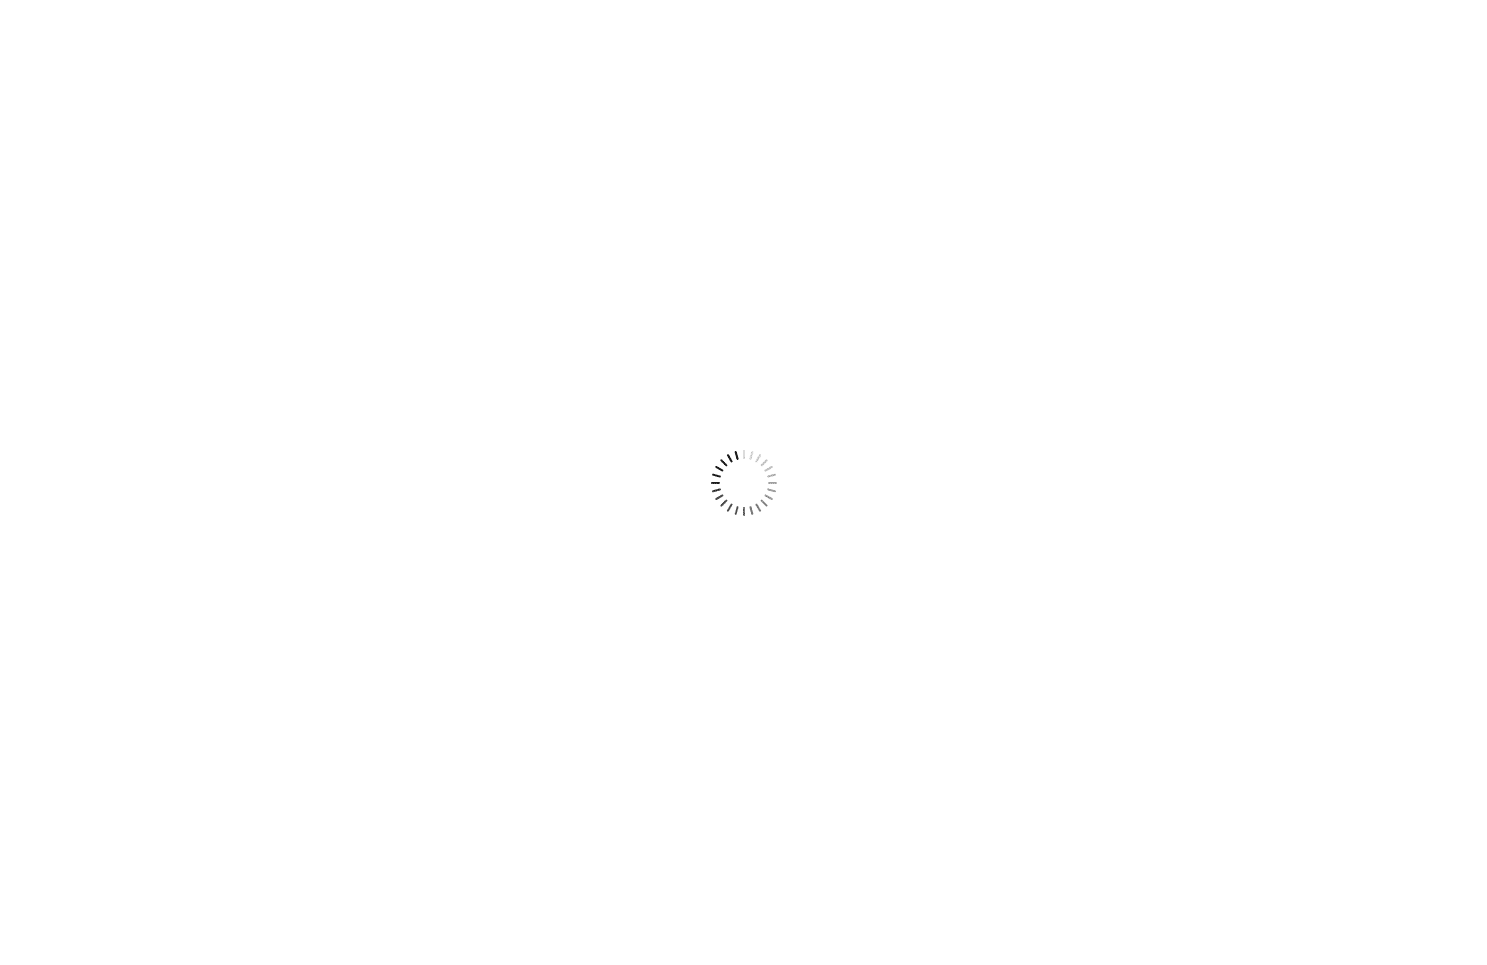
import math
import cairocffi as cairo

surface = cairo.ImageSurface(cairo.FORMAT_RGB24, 1487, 965)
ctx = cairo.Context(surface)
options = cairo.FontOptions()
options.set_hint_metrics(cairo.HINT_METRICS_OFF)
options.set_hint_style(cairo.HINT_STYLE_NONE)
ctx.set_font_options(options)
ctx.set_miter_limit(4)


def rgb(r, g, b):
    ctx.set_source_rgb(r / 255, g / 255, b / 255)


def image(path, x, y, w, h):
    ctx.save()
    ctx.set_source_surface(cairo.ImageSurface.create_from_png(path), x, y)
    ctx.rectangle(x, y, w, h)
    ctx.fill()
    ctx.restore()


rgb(255, 255, 255)
ctx.paint()
image('image0.png', 711, 450, 66, 66)
surface.write_to_png('render.png')
